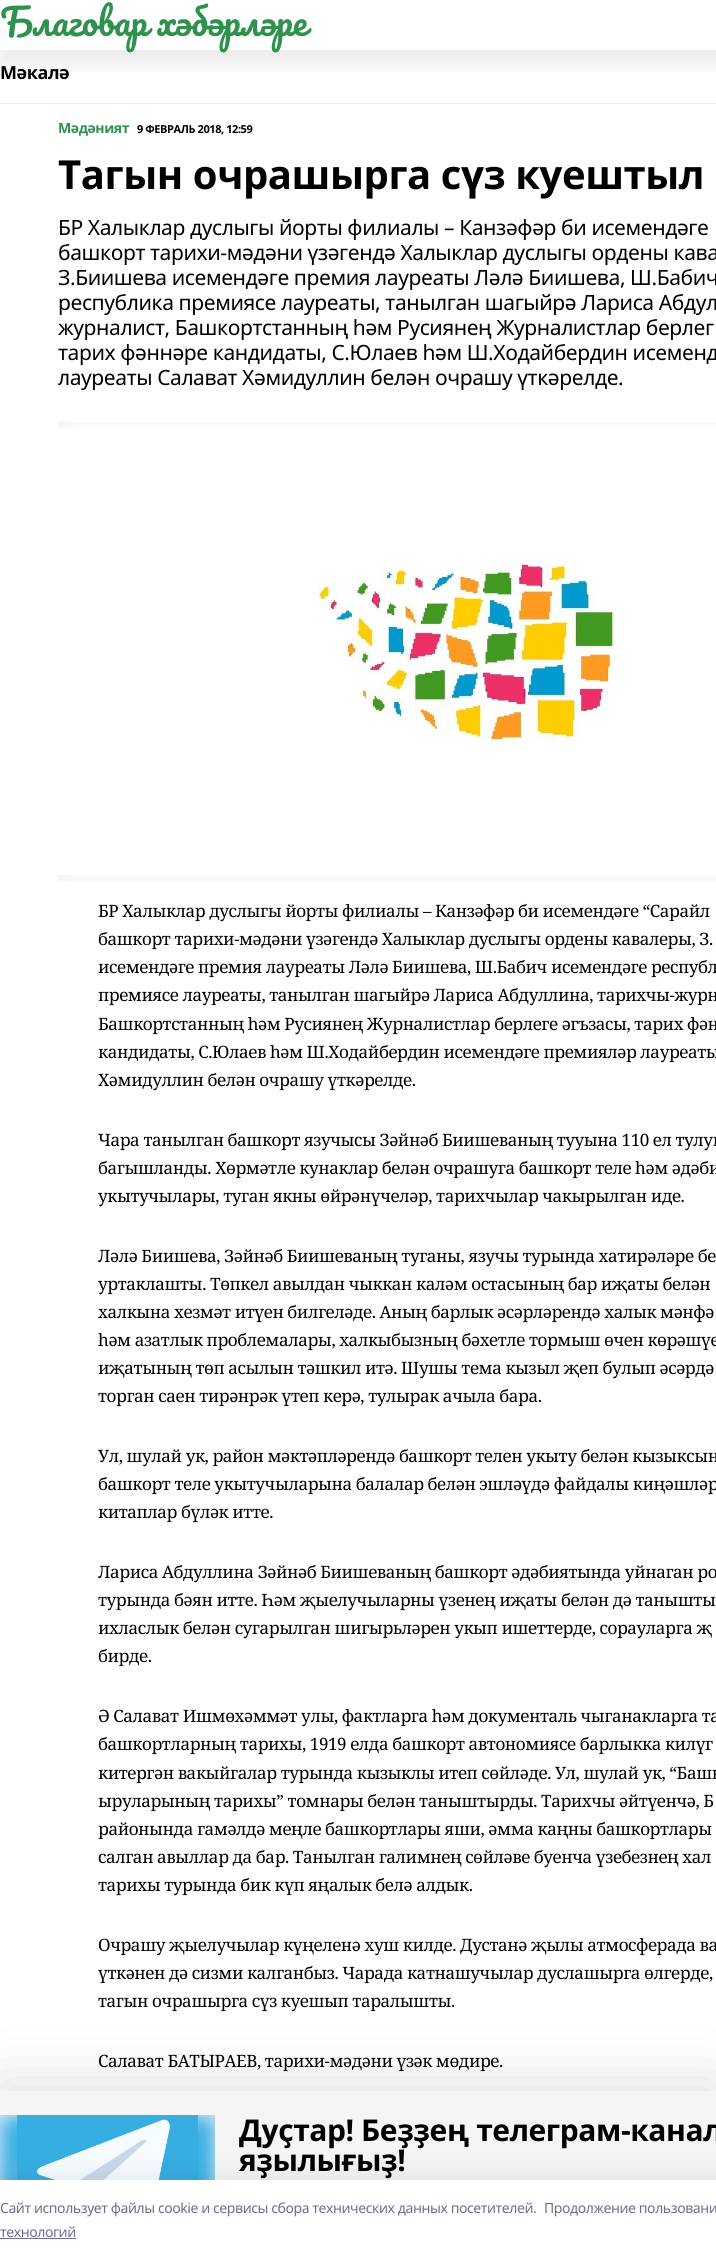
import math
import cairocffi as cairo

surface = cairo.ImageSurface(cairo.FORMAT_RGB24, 716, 2260)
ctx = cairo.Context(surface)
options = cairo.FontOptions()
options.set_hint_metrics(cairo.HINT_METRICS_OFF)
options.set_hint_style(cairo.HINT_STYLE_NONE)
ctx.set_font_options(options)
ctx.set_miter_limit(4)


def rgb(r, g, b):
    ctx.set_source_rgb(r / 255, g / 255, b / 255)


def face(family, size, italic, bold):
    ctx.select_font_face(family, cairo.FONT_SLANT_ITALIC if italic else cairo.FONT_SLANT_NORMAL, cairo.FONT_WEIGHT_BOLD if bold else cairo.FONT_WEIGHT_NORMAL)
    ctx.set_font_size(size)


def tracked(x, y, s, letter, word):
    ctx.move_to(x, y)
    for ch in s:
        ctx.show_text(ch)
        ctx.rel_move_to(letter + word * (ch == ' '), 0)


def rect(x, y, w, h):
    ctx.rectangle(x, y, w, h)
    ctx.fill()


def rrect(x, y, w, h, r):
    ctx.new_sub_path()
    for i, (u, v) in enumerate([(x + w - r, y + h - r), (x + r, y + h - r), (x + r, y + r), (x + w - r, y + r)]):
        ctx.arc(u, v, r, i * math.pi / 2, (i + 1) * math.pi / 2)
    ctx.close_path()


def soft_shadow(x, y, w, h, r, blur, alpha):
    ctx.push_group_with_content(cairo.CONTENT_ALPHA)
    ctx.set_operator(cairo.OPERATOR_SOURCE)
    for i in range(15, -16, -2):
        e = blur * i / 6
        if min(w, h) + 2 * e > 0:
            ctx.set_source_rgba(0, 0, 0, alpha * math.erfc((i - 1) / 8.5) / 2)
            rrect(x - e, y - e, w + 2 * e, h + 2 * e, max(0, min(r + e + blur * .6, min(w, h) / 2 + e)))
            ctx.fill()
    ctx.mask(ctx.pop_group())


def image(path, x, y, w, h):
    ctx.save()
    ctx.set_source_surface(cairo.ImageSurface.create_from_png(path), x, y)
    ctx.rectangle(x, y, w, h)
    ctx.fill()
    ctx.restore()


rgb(255, 255, 255)
ctx.paint()
ctx.save()
ctx.rectangle(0, 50, 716, 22)
ctx.clip()
rgb(0, 0, 0)
soft_shadow(0, 15, 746, 50, 0, 10, 0.08)
ctx.restore()
face('Pacifico', 36, 0, 0)
rgb(46, 145, 78)
tracked(0, 36, 'Благовар хәбәрләре', -0.42, 0)
rgb(234, 234, 234)
rect(0, 103, 716, 1)
face('Noto Sans', 18, 0, 1)
rgb(0, 0, 0)
tracked(0, 79, 'Мәкалә', -0.42, 0)
face('Noto Sans', 14, 0, 1)
rgb(46, 145, 78)
tracked(58, 133, 'Мәдәният', -0.42, 0)
face('Noto Sans', 11, 0, 1)
rgb(0, 0, 0)
tracked(137, 133, '9 ФЕВРАЛЬ 2018, 12:59', -0.42, 0)
face('Noto Sans', 40, 0, 1)
tracked(58, 189, 'Тагын очрашырга сүз куештыл', -0.42, 0)
face('Noto Sans', 21, 0, 0)
tracked(58, 235, 'БР Халыклар дуслыгы йорты филиалы – Канзәфәр би исемендәге', -0.42, 0)
tracked(58, 260, 'башкорт тарихи-мәдәни үзәгендә Халыклар дуслыгы ордены кава', -0.42, 0)
tracked(58, 285, 'З.Биишева исемендәге премия лауреаты Ләлә Биишева, Ш.Бабич', -0.42, 0)
tracked(58, 310, 'республика премиясе лауреаты, танылган шагыйрә Лариса Абдул', -0.42, 0)
tracked(58, 335, 'журналист, Башкортстанның һәм Русиянең Журналистлар берлег', -0.42, 0)
tracked(58, 360, 'тарих фәннәре кандидаты, С.Юлаев һәм Ш.Ходайбердин исеменд', -0.42, 0)
tracked(58, 385, 'лауреаты Салават Хәмидуллин белән очрашу үткәрелде.', -0.42, 0)
rgb(237, 242, 247)
rect(58, 422, 658, 459)
image('image0.png', 58, 422, 658, 459)
image('image1.png', 58, 429, 658, 446)
face('Noto Serif', 17, 0, 0)
rgb(0, 0, 0)
tracked(98, 917, 'БР Халыклар дуслыгы йорты филиалы – Канзәфәр би исемендәге “Сарайл', -0.42, 0)
tracked(98, 945, 'башкорт тарихи-мәдәни үзәгендә Халыклар дуслыгы ордены кавалеры, З.', -0.42, 0)
tracked(98, 973, 'исемендәге премия лауреаты Ләлә Биишева, Ш.Бабич исемендәге республ', -0.42, 0)
tracked(98, 1001, 'премиясе лауреаты, танылган шагыйрә Лариса Абдуллина, тарихчы-журн', -0.42, 0)
tracked(98, 1030, 'Башкортстанның һәм Русиянең Журналистлар берлеге әгъзасы, тарих фән', -0.42, 0)
tracked(98, 1058, 'кандидаты, С.Юлаев һәм Ш.Ходайбердин исемендәге премияләр лауреаты', -0.42, 0)
tracked(98, 1086, 'Хәмидуллин белән очрашу үткәрелде.', -0.42, 0)
tracked(98, 1146, 'Чара танылган башкорт язучысы Зәйнәб Биишеваның тууына 110 ел тулуг', -0.42, 0)
tracked(98, 1174, 'багышланды. Хөрмәтле кунаклар белән очрашуга башкорт теле һәм әдәби', -0.42, 0)
tracked(98, 1202, 'укытучылары, туган якны өйрәнүчеләр, тарихчылар чакырылган иде.', -0.42, 0)
tracked(98, 1262, 'Ләлә Биишева, Зәйнәб Биишеваның туганы, язучы турында хатирәләре бе', -0.42, 0)
tracked(98, 1290, 'уртаклашты. Төпкел авылдан чыккан каләм остасының бар иҗаты белән', -0.42, 0)
tracked(98, 1318, 'халкына хезмәт итүен билгеләде. Аның барлык әсәрләрендә халык мәнфә', -0.42, 0)
tracked(98, 1346, 'һәм азатлык проблемалары, халкыбызның бәхетле тормыш өчен көрәшүе', -0.42, 0)
tracked(98, 1374, 'иҗатының төп асылын тәшкил итә. Шушы тема кызыл җеп булып әсәрдә', -0.42, 0)
tracked(98, 1402, 'торган саен тирәнрәк үтеп керә, тулырак ачыла бара.', -0.42, 0)
tracked(98, 1462, 'Ул, шулай ук, район мәктәпләрендә башкорт телен укыту белән кызыксын', -0.42, 0)
tracked(98, 1490, 'башкорт теле укытучыларына балалар белән эшләүдә файдалы киңәшләр', -0.42, 0)
tracked(98, 1518, 'китаплар бүләк итте.', -0.42, 0)
tracked(98, 1578, 'Лариса Абдуллина Зәйнәб Биишеваның башкорт әдәбиятында уйнаган ро', -0.42, 0)
tracked(98, 1606, 'турында бәян итте. Һәм җыелучыларны үзенең иҗаты белән дә танышты', -0.42, 0)
tracked(98, 1634, 'ихласлык белән сугарылган шигырьләрен укып ишеттерде, сорауларга җ', -0.42, 0)
tracked(98, 1662, 'бирде.', -0.42, 0)
tracked(98, 1722, 'Ә Салават Ишмөхәммәт улы, фактларга һәм документаль чыганакларга та', -0.42, 0)
tracked(98, 1750, 'башкортларның тарихы, 1919 елда башкорт автономиясе барлыкка килүг', -0.42, 0)
tracked(98, 1779, 'китергән вакыйгалар турында кызыклы итеп сөйләде. Ул, шулай ук, “Башк', -0.42, 0)
tracked(98, 1807, 'ыруларының тарихы” томнары белән таныштырды. Тарихчы әйтүенчә, Б', -0.42, 0)
tracked(98, 1835, 'районында гамәлдә меңле башкортлары яши, әмма каңны башкортлары', -0.42, 0)
tracked(98, 1863, 'салган авыллар да бар. Танылган галимнең сөйләве буенча үзебезнең хал', -0.42, 0)
tracked(98, 1891, 'тарихы турында бик күп яңалык белә алдык.', -0.42, 0)
tracked(98, 1951, 'Очрашу җыелучылар күңеленә хуш килде. Дустанә җылы атмосферада ва', -0.42, 0)
tracked(98, 1979, 'үткәнен дә сизми калганбыз. Чарада катнашучылар дуслашырга өлгерде,', -0.42, 0)
tracked(98, 2007, 'тагын очрашырга сүз куешып таралышты.', -0.42, 0)
tracked(98, 2067, 'Салават БАТЫРАЕВ, тарихи-мәдәни үзәк мөдире.', -0.42, 0)
rgb(0, 0, 0)
soft_shadow(0, 2081, 716, 169, 0, 30, 0.12)
rgb(245, 245, 245)
rect(0, 2091, 716, 89)
rgb(237, 242, 247)
rect(0, 2115, 215, 65)
image('image2.png', 0, 2115, 215, 65)
image('image3.png', 17, 2115, 181, 65)
face('Noto Sans', 30, 0, 1)
rgb(0, 0, 0)
tracked(239, 2141, 'Дуҫтар! Беҙҙең телеграм-канал', -0.42, 0)
tracked(239, 2171, 'яҙылығыҙ!', -0.42, 0)
rgb(20, 20, 43)
soft_shadow(0, 2174, 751, 80, 0, 11.5, 0.08)
rgb(255, 255, 255)
rect(0, 2180, 716, 80)
face('Noto Sans', 14, 0, 0)
rgb(111, 108, 144)
tracked(0, 2213, 'Cайт использует файлы cookie и сервисы сбора технических данных посетителей.', -0.42, 0)
tracked(544, 2213, 'Продолжение пользовани', -0.42, 0)
tracked(0, 2237, 'технологий', -0.42, 0)
rect(0, 2238, 76, 1)
surface.write_to_png('render.png')
